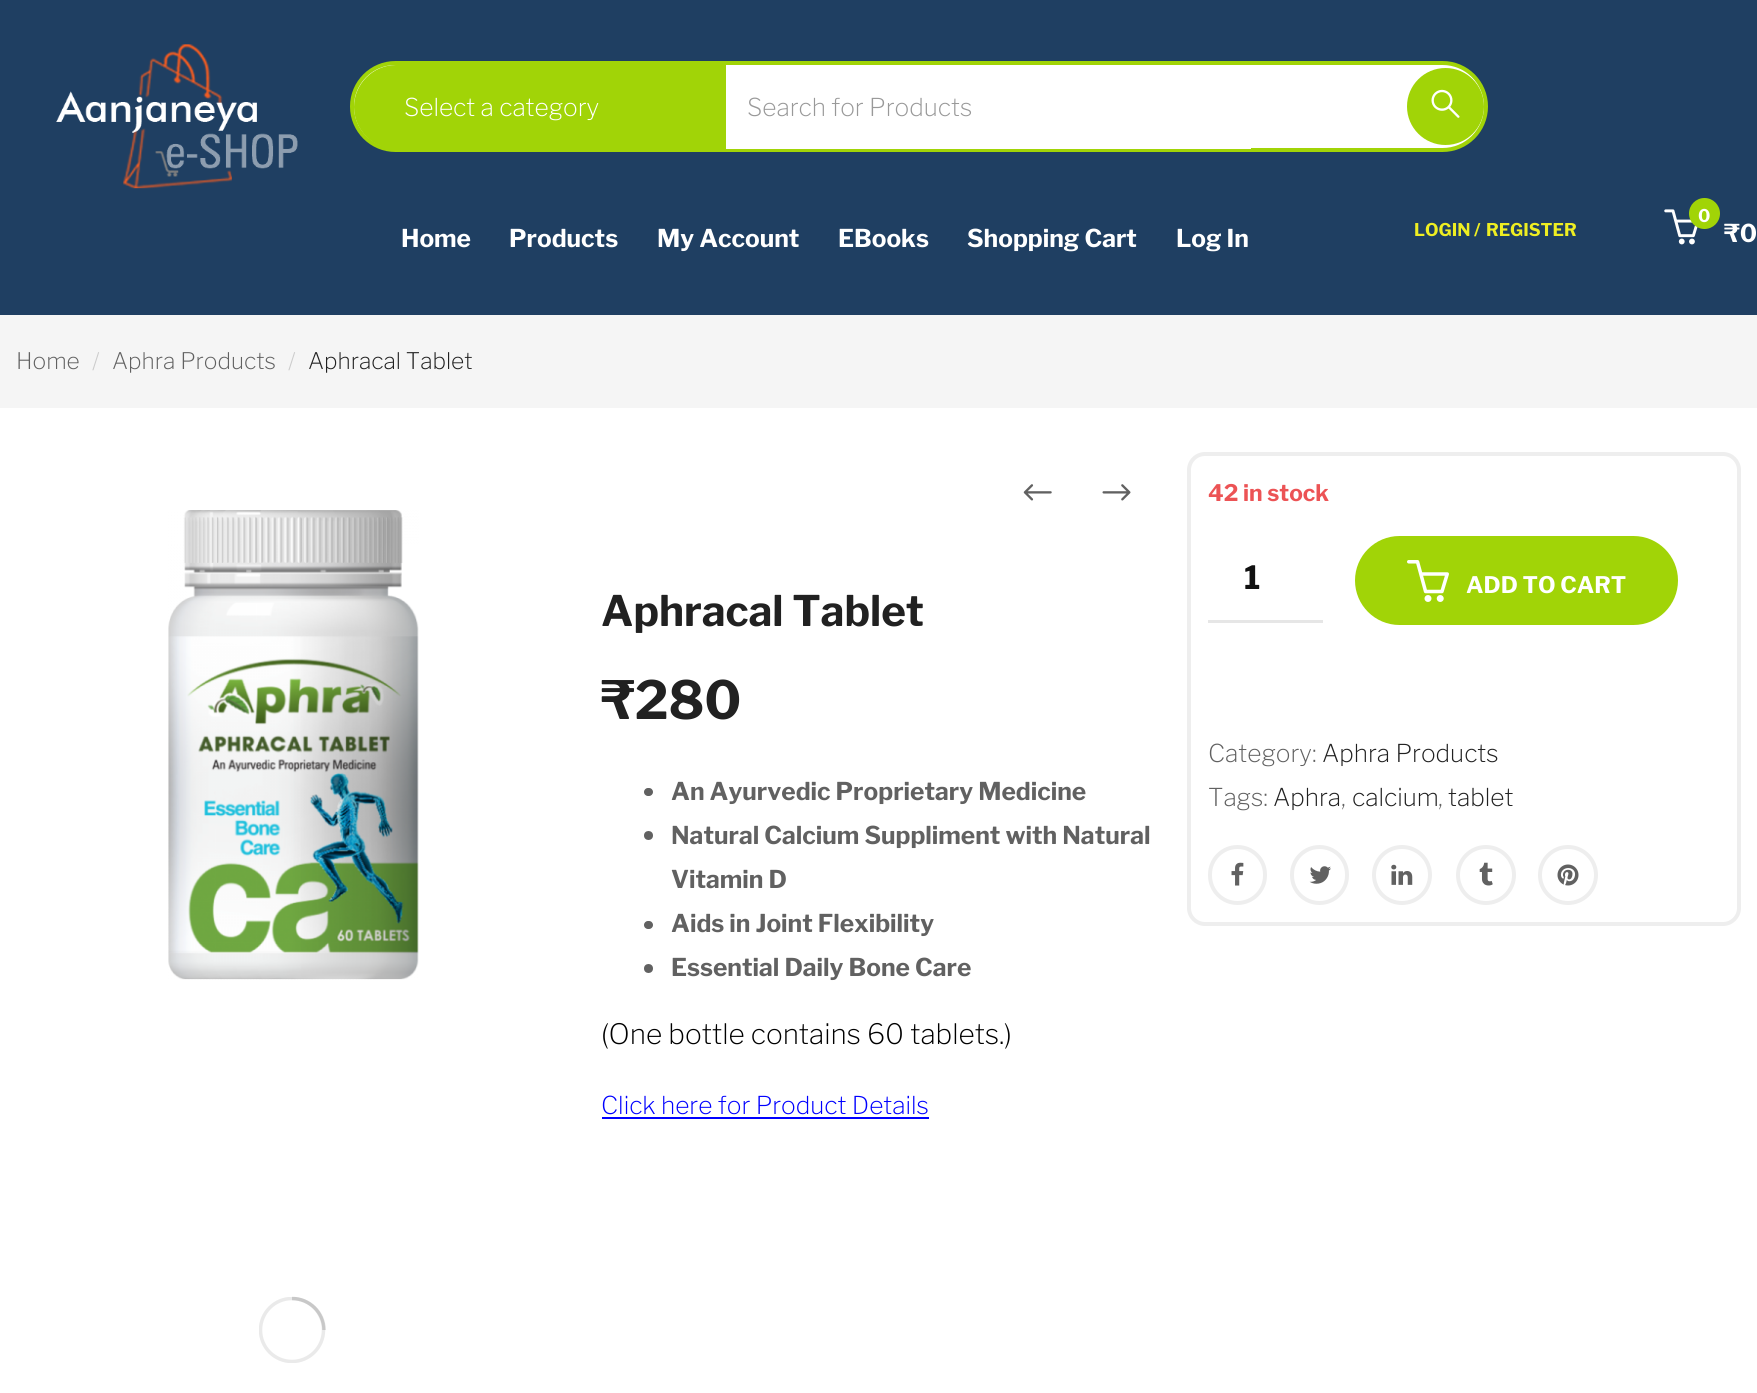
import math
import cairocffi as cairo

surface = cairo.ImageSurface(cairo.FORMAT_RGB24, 1757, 1393)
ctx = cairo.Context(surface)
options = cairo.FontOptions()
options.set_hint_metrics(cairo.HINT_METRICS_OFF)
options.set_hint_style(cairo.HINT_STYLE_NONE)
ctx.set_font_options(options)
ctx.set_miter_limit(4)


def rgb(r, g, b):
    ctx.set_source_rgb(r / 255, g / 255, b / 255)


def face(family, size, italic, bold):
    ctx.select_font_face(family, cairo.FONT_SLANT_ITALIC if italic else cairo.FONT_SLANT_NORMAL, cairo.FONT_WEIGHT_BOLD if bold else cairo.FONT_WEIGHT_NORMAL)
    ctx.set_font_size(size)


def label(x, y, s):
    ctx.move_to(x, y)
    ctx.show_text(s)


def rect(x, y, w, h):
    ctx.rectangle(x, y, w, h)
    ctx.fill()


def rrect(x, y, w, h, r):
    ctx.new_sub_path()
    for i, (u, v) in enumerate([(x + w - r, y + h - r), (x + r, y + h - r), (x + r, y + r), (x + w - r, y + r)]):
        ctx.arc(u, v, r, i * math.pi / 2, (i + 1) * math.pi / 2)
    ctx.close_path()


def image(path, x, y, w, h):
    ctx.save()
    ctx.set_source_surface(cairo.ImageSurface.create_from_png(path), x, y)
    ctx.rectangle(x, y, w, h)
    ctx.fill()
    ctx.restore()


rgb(245, 245, 245)
ctx.paint()
rgb(31, 63, 98)
rect(0, 0, 1757, 315)
image('image0.png', 56, 44, 242, 145)
rgb(255, 255, 255)
rrect(352, 63, 1134, 87, 43.5)
ctx.fill_preserve()
rgb(161, 212, 7)
ctx.set_line_width(4)
ctx.stroke()
ctx.new_path()
ctx.move_to(396, 65)
ctx.line_to(726, 65)
ctx.line_to(726, 149)
ctx.line_to(396, 149)
ctx.curve_to(373, 149, 354, 130, 354, 107)
ctx.curve_to(354, 84, 373, 65, 396, 65)
ctx.close_path()
ctx.fill()
face('Libre Franklin ExtraLight', 24.5, 0, 0)
rgb(255, 255, 255)
label(404, 116, 'Select a category')
rect(726, 148, 525, 1)
rgb(153, 153, 153)
label(747, 116, 'Search for Products')
ctx.save()
rrect(354, 65, 1130, 84, 42)
ctx.clip()
rgb(161, 212, 7)
ctx.arc(1445.5, 106.5, 38.5, 0, 2 * math.pi)
ctx.fill()
ctx.restore()
image('image1.png', 1431, 89, 29, 29)
face('Libre Franklin', 24.5, 0, 1)
rgb(255, 255, 255)
label(401, 247, 'Home')
label(509, 247, 'Products')
label(657, 247, 'My Account')
label(838, 247, 'EBooks')
label(967, 247, 'Shopping Cart')
label(1176, 247, 'Log In')
face('Libre Franklin', 17.5, 0, 1)
rgb(238, 238, 34)
label(1414, 236, 'LOGIN /')
label(1486, 236, 'REGISTER')
image('image2.png', 1664, 209, 34, 36)
rgb(161, 212, 7)
ctx.arc(1704.5, 213.5, 15.5, 0, 2 * math.pi)
ctx.fill()
rgb(255, 255, 255)
label(1698, 222, '0')
face('Libre Franklin', 24.5, 0, 1)
label(1724, 242, '₹0')
face('Libre Franklin ExtraLight', 22.75, 0, 0)
rgb(97, 97, 97)
label(16, 369, 'Home')
rgb(204, 204, 204)
label(92, 369, '/')
rgb(97, 97, 97)
label(112, 369, 'Aphra Products')
rgb(204, 204, 204)
label(288, 369, '/')
rgb(33, 33, 33)
label(308, 369, 'Aphracal Tablet')
rgb(255, 255, 255)
rect(0, 408, 1757, 985)
image('image3.png', 168, 510, 251, 470)
ctx.save()
ctx.rectangle(259, 1297, 67, 66)
ctx.clip()
ctx.arc(292, 1330, 31.5, 0, 2 * math.pi)
rgb(234, 234, 234)
ctx.set_line_width(3.5)
ctx.stroke()
ctx.restore()
ctx.new_path()
ctx.move_to(324, 1330)
ctx.curve_to(324, 1312.5, 309.5, 1298.5, 292, 1298.5)
ctx.set_source_rgba(0.4, 0.4, 0.4, 0.25)
ctx.set_line_width(3.5)
ctx.stroke()
image('image4.png', 1023, 484, 29, 17)
image('image5.png', 1102, 484, 29, 17)
face('Libre Franklin', 42, 0, 1)
rgb(33, 33, 33)
label(601, 626, 'Aphracal Tablet')
face('Libre Franklin', 52.5, 0, 1)
label(601, 719, '₹280')
rgb(97, 97, 97)
rrect(644, 788, 9, 8, 4)
ctx.fill()
face('Libre Franklin', 24.5, 0, 1)
label(671, 800, 'An Ayurvedic Proprietary Medicine')
ctx.new_path()
ctx.arc(648.5, 835.5, 4.5, 0, 2 * math.pi)
ctx.fill()
label(671, 844, 'Natural Calcium Suppliment with Natural')
label(671, 888, 'Vitamin D')
rrect(644, 921, 9, 8, 4)
ctx.fill()
label(671, 932, 'Aids in Joint Flexibility')
ctx.new_path()
ctx.arc(648.5, 968.5, 4.5, 0, 2 * math.pi)
ctx.fill()
label(671, 976, 'Essential Daily Bone Care')
face('Libre Franklin ExtraLight', 28, 0, 0)
rgb(0, 0, 0)
label(601, 1044, '(One bottle contains 60 tablets.)')
face('Libre Franklin ExtraLight', 24.5, 0, 0)
rgb(0, 0, 255)
label(601, 1114, 'Click here for Product Details')
rect(602, 1117, 327, 2)
rrect(1189, 454, 550, 470, 16)
rgb(238, 238, 238)
ctx.set_line_width(4)
ctx.stroke()
face('Libre Franklin', 22.75, 0, 1)
rgb(236, 83, 85)
label(1208, 501, '42 in stock')
rgb(230, 230, 230)
rect(1208, 620, 115, 3)
face('Libre Franklin', 32, 0, 1)
rgb(17, 17, 17)
label(1244, 589, '1')
rgb(161, 212, 7)
rrect(1355, 536, 323, 89, 44.5)
ctx.fill()
image('image6.png', 1407, 560, 42, 42)
face('Libre Franklin', 22.75, 0, 1)
rgb(255, 255, 255)
label(1466, 593, 'ADD TO CART')
face('Libre Franklin ExtraLight', 24.5, 0, 0)
rgb(97, 97, 97)
label(1208, 762, 'Category:')
rgb(33, 33, 33)
label(1322, 762, 'Aphra Products')
rgb(97, 97, 97)
label(1208, 806, 'Tags:')
rgb(33, 33, 33)
label(1273, 806, 'Aphra')
rgb(97, 97, 97)
label(1341, 806, ',')
rgb(33, 33, 33)
label(1352, 806, 'calcium')
rgb(97, 97, 97)
label(1438, 806, ',')
rgb(33, 33, 33)
label(1448, 806, 'tablet')
rrect(1210, 847, 55, 56, 27.5)
rgb(238, 238, 238)
ctx.stroke()
image('image7.png', 1231, 862, 13, 24)
rrect(1292, 847, 55, 56, 27.5)
ctx.stroke()
image('image8.png', 1309, 866, 22, 18)
ctx.arc(1402, 875, 28, 0, 2 * math.pi)
ctx.stroke()
image('image9.png', 1391, 864, 22, 21)
ctx.arc(1486, 875, 28, 0, 2 * math.pi)
ctx.stroke()
image('image10.png', 1479, 862, 14, 24)
ctx.arc(1568, 875, 28, 0, 2 * math.pi)
ctx.stroke()
image('image11.png', 1557, 864, 22, 22)
surface.write_to_png('render.png')
